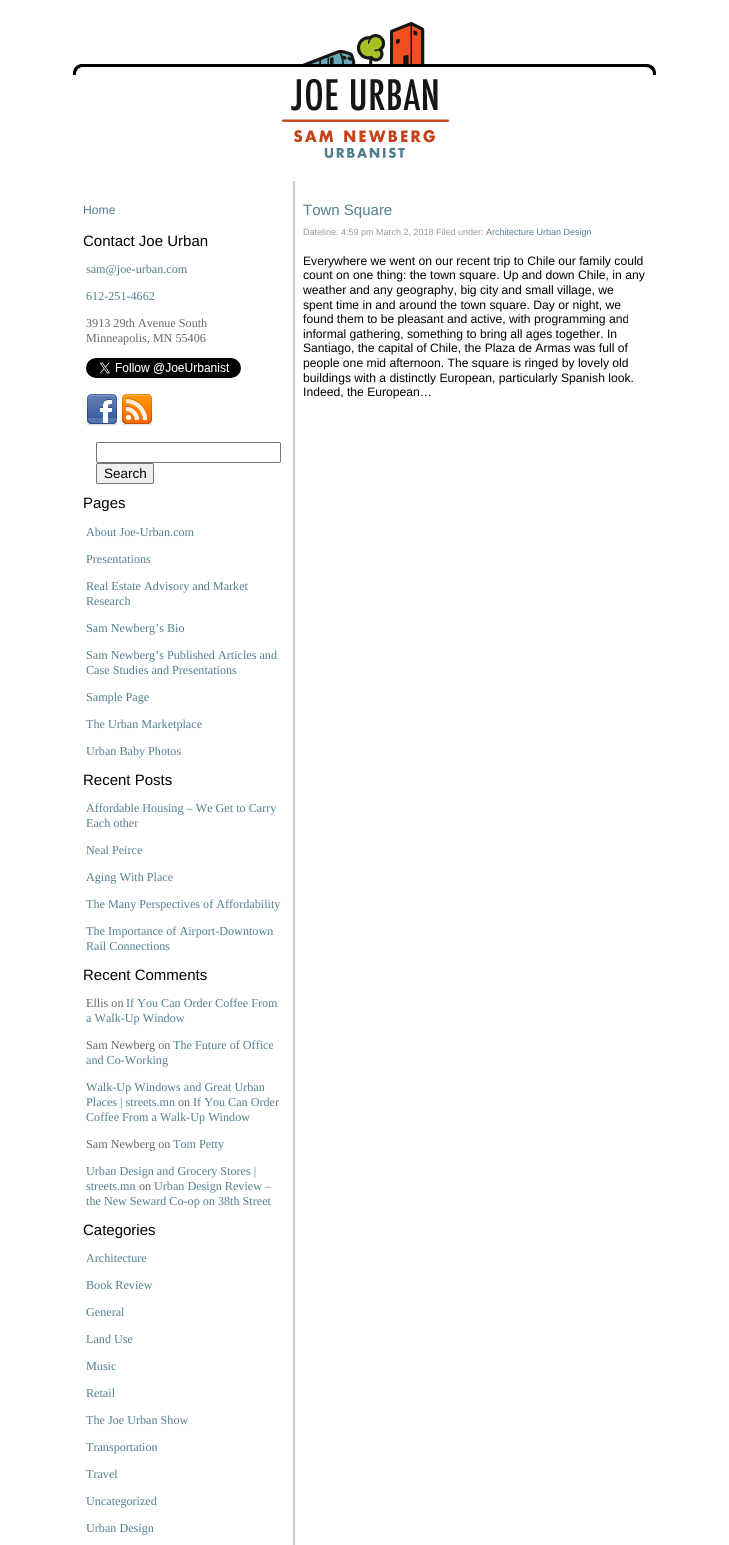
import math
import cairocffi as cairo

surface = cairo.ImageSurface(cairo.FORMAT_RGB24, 729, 1545)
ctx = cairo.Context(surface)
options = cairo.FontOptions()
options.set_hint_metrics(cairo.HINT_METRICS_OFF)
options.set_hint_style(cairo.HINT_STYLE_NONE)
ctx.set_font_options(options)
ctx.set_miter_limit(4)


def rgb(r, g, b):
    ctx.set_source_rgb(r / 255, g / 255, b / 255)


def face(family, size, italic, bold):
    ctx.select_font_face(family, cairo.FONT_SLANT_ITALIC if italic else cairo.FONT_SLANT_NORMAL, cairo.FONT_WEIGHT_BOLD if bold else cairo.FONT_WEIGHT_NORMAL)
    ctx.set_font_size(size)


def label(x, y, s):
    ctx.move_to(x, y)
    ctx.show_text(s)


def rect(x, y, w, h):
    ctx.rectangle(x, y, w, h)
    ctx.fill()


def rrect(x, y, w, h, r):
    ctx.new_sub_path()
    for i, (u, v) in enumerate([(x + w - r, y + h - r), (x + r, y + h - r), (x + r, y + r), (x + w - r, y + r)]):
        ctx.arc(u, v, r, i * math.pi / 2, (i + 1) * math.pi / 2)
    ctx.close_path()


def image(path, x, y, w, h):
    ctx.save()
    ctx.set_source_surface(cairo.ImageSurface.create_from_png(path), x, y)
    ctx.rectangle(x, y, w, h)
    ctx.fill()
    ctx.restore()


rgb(255, 255, 255)
ctx.paint()
image('image0.png', 303, 22, 122, 42)
rgb(0, 0, 0)
rect(82, 64, 564, 3)
image('image1.png', 73, 64, 9, 11)
image('image2.png', 646, 64, 10, 11)
image('image3.png', 282, 79, 167, 79)
rgb(204, 204, 204)
rect(293, 181, 2, 1364)
face('Liberation Sans', 12.15, 0, 0)
rgb(82, 127, 142)
label(83, 214, 'Home')
face('Liberation Sans', 15, 0, 0)
rgb(0, 0, 0)
label(83, 246, 'Contact Joe Urban')
face('Liberation Serif', 12.15, 0, 0)
rgb(82, 127, 142)
label(86, 273, 'sam@joe-urban.com')
label(86, 300, '612-251-4662')
rgb(102, 102, 102)
label(86, 327, '3913 29th Avenue South')
label(86, 342, 'Minneapolis, MN 55406')
image('image4.png', 86, 358, 155, 20)
image('image5.png', 86, 394, 32, 32)
image('image6.png', 122, 394, 30, 32)
rrect(96.5, 442.5, 184, 20, 1.5)
rgb(118, 118, 118)
ctx.set_line_width(1)
ctx.stroke()
rgb(239, 239, 239)
rrect(96.5, 463.5, 57, 20, 1.5)
ctx.fill_preserve()
rgb(118, 118, 118)
ctx.stroke()
face('Liberation Sans', 13.5, 0, 0)
rgb(0, 0, 0)
label(104, 478, 'Search')
face('Liberation Sans', 15, 0, 0)
label(83, 508, 'Pages')
face('Liberation Serif', 12.15, 0, 0)
rgb(82, 127, 142)
label(86, 536, 'About Joe-Urban.com')
label(86, 563, 'Presentations')
label(86, 590, 'Real Estate Advisory and Market')
label(86, 605, 'Research')
label(86, 632, 'Sam Newberg’s Bio')
label(86, 659, 'Sam Newberg’s Published Articles and')
label(86, 674, 'Case Studies and Presentations')
label(86, 701, 'Sample Page')
label(86, 728, 'The Urban Marketplace')
label(86, 755, 'Urban Baby Photos')
face('Liberation Sans', 15, 0, 0)
rgb(0, 0, 0)
label(83, 785, 'Recent Posts')
face('Liberation Serif', 12.15, 0, 0)
rgb(82, 127, 142)
label(86, 812, 'Affordable Housing – We Get to Carry')
label(86, 827, 'Each other')
label(86, 854, 'Neal Peirce')
label(86, 881, 'Aging With Place')
label(86, 908, 'The Many Perspectives of Affordability')
label(86, 935, 'The Importance of Airport-Downtown')
label(86, 950, 'Rail Connections')
face('Liberation Sans', 15, 0, 0)
rgb(0, 0, 0)
label(83, 980, 'Recent Comments')
face('Liberation Serif', 12.15, 0, 0)
rgb(102, 102, 102)
label(86, 1007, 'Ellis on')
rgb(82, 127, 142)
label(126, 1007, 'If You Can Order Coffee From')
label(86, 1022, 'a Walk-Up Window')
rgb(102, 102, 102)
label(86, 1049, 'Sam Newberg on')
rgb(82, 127, 142)
label(173, 1049, 'The Future of Office')
label(86, 1064, 'and Co-Working')
label(86, 1091, 'Walk-Up Windows and Great Urban')
label(86, 1106, 'Places | streets.mn')
rgb(102, 102, 102)
label(178, 1106, 'on')
rgb(82, 127, 142)
label(193, 1106, 'If You Can Order')
label(86, 1121, 'Coffee From a Walk-Up Window')
rgb(102, 102, 102)
label(86, 1148, 'Sam Newberg on')
rgb(82, 127, 142)
label(173, 1148, 'Tom Petty')
label(86, 1175, 'Urban Design and Grocery Stores |')
label(86, 1190, 'streets.mn')
rgb(102, 102, 102)
label(139, 1190, 'on')
rgb(82, 127, 142)
label(154, 1190, 'Urban Design Review –')
label(86, 1205, 'the New Seward Co-op on 38th Street')
face('Liberation Sans', 15, 0, 0)
rgb(0, 0, 0)
label(83, 1235, 'Categories')
face('Liberation Serif', 12.15, 0, 0)
rgb(82, 127, 142)
label(86, 1262, 'Architecture')
label(86, 1289, 'Book Review')
label(86, 1316, 'General')
label(86, 1343, 'Land Use')
label(86, 1370, 'Music')
label(86, 1397, 'Retail')
label(86, 1424, 'The Joe Urban Show')
label(86, 1451, 'Transportation')
label(86, 1478, 'Travel')
label(86, 1505, 'Uncategorized')
label(86, 1532, 'Urban Design')
face('Liberation Sans', 15, 0, 0)
label(303, 215, 'Town Square')
face('Liberation Sans', 9, 0, 0)
rgb(153, 153, 153)
label(303, 235, 'Dateline: 4:59 pm March 2, 2018 Filed under:')
rgb(82, 127, 142)
label(486, 235, 'Architecture Urban Design')
face('Liberation Sans', 12.15, 0, 0)
rgb(0, 0, 0)
label(303, 265, 'Everywhere we went on our recent trip to Chile our family could')
label(303, 279, 'count on one thing: the town square. Up and down Chile, in any')
label(303, 294, 'weather and any geography, big city and small village, we')
label(303, 309, 'spent time in and around the town square. Day or night, we')
label(303, 323, 'found them to be pleasant and active, with programming and')
label(303, 338, 'informal gathering, something to bring all ages together. In')
label(303, 352, 'Santiago, the capital of Chile, the Plaza de Armas was full of')
label(303, 367, 'people one mid afternoon. The square is ringed by lovely old')
label(303, 382, 'buildings with a distinctly European, particularly Spanish look.')
label(303, 396, 'Indeed, the European…')
surface.write_to_png('render.png')
